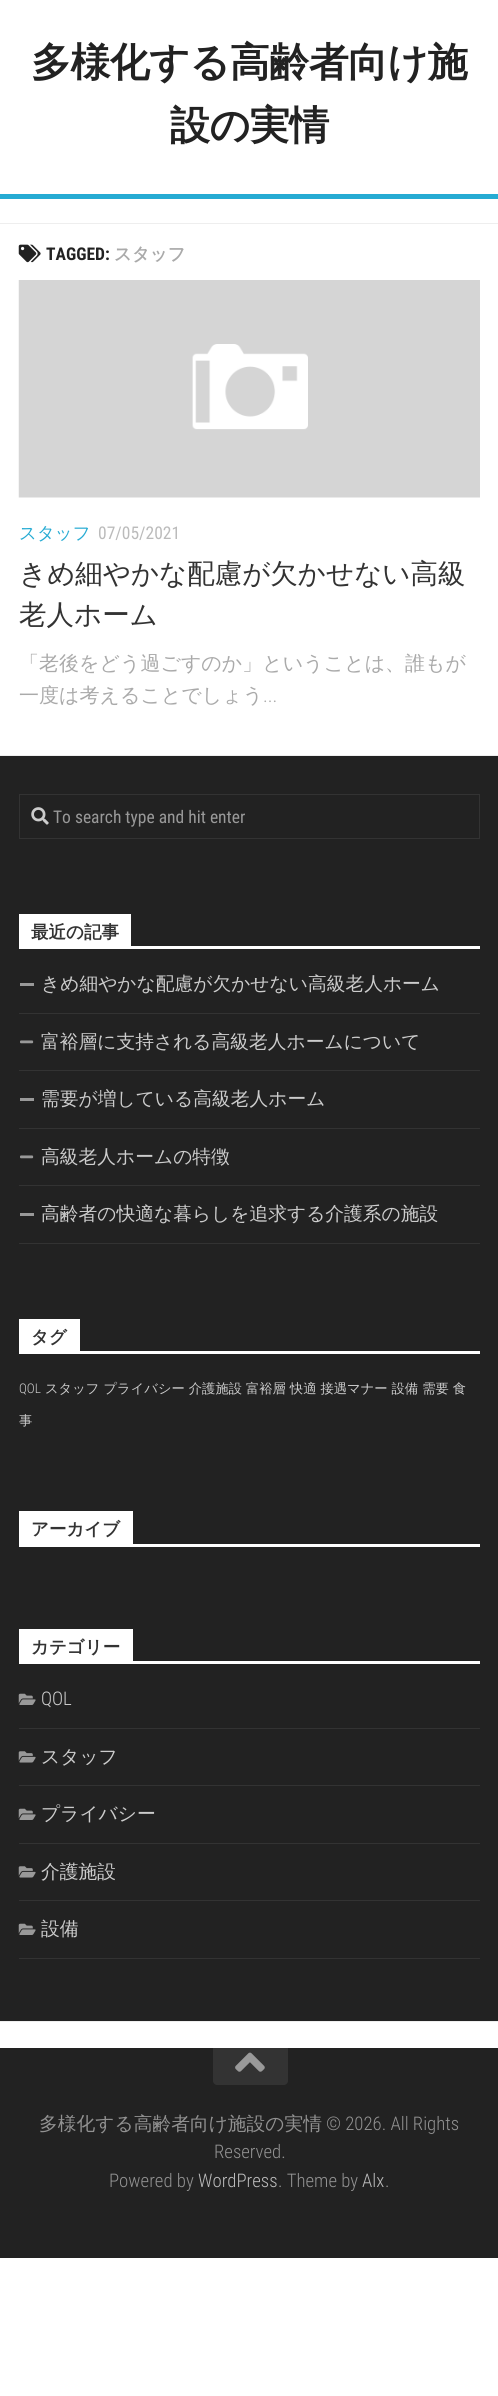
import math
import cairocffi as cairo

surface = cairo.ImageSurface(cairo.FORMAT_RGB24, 498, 2396)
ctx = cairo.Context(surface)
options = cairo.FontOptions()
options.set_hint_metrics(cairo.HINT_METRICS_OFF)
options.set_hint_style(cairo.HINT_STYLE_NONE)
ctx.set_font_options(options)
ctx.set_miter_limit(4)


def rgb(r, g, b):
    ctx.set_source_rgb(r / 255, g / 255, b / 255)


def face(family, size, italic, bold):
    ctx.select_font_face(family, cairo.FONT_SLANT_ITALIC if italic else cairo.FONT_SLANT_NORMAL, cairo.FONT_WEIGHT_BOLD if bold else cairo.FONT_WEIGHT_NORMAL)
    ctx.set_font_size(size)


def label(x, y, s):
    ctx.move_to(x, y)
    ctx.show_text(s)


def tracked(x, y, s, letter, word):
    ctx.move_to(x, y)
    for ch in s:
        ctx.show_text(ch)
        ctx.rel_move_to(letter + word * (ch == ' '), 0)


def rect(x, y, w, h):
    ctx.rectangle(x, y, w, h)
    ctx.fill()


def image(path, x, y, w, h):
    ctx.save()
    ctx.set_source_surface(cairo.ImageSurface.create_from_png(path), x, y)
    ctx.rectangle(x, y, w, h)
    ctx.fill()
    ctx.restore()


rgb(255, 255, 255)
ctx.paint()
rgb(38, 171, 211)
rect(0, 194, 498, 5)
face('WenQuanYi Zen Hei', 40, 0, 1)
rgb(34, 34, 34)
tracked(31, 76, '多様化する高齢者向け施', -0.6, 0)
tracked(170, 139, '設の実情', -0.6, 0)
rgb(238, 238, 238)
rect(0, 223, 498, 1)
image('image0.png', 18, 244, 23, 19)
face('Roboto Condensed', 17.5, 0, 1)
rgb(34, 34, 34)
label(46, 260, 'TAGGED:')
face('WenQuanYi Zen Hei', 17.5, 0, 1)
rgb(170, 170, 170)
label(114, 260, 'スタッフ')
image('image1.png', 18, 280, 462, 218)
face('WenQuanYi Zen Hei Medium', 17.5, 0, 0)
rgb(38, 171, 211)
label(19, 539, 'スタッフ')
face('Roboto Condensed', 17.5, 0, 0)
rgb(187, 187, 187)
label(98, 539, '07/05/2021')
face('WenQuanYi Zen Hei Medium', 27.5, 0, 0)
rgb(51, 51, 51)
label(19, 583, 'きめ細やかな配慮が欠かせない高級')
label(19, 624, '老人ホーム')
face('WenQuanYi Zen Hei Medium', 20, 0, 0)
rgb(170, 170, 170)
label(19, 670, '「老後をどう過ごすのか」ということは、誰もが')
label(19, 702, '一度は考えることでしょう')
face('Roboto Condensed Light', 20, 0, 0)
label(263, 702, '...')
rgb(34, 34, 34)
rect(0, 756, 498, 1265)
rgb(238, 238, 238)
rect(0, 755, 498, 1)
ctx.rectangle(19.5, 794.5, 460, 44)
rgb(51, 51, 51)
ctx.set_line_width(1)
ctx.stroke()
image('image2.png', 31, 807, 18, 18)
face('Roboto Condensed', 17.5, 0, 0)
rgb(153, 153, 153)
label(53, 823, 'To search type and hit enter')
rgb(255, 255, 255)
rect(19, 946, 461, 3)
rect(19, 914, 112, 32)
face('WenQuanYi Zen Hei', 17.5, 0, 1)
rgb(51, 51, 51)
label(31, 938, '最近の記事')
rect(19, 1013, 461, 1)
rgb(153, 153, 153)
rect(20, 983, 14, 3)
face('WenQuanYi Zen Hei Medium', 18.75, 0, 0)
rgb(204, 204, 204)
label(41, 990, 'きめ細やかな配慮が欠かせない高級老人ホーム')
rgb(51, 51, 51)
rect(19, 1070, 461, 1)
image('image3.png', 20, 1040, 14, 4)
rgb(204, 204, 204)
label(41, 1048, '富裕層に支持される高級老人ホームについて')
rgb(51, 51, 51)
rect(19, 1128, 461, 1)
rgb(153, 153, 153)
rect(20, 1098, 14, 3)
rgb(204, 204, 204)
label(41, 1105, '需要が増している高級老人ホーム')
rgb(51, 51, 51)
rect(19, 1185, 461, 1)
image('image3.png', 20, 1155, 14, 4)
rgb(204, 204, 204)
label(41, 1163, '高級老人ホームの特徴')
rgb(51, 51, 51)
rect(19, 1243, 461, 1)
rgb(153, 153, 153)
rect(20, 1213, 14, 3)
rgb(204, 204, 204)
label(41, 1220, '高齢者の快適な暮らしを追求する介護系の施設')
rgb(255, 255, 255)
rect(19, 1351, 461, 3)
rect(19, 1319, 61, 32)
face('WenQuanYi Zen Hei', 17.5, 0, 1)
rgb(51, 51, 51)
label(31, 1343, 'タグ')
face('Roboto Condensed Light', 13.3, 0, 0)
rgb(204, 204, 204)
label(19, 1393, 'QOL')
face('WenQuanYi Zen Hei Medium', 13.3, 0, 0)
label(45, 1393, 'スタッフ プライバシー 介護施設 富裕層 快適 接遇マナー 設備 需要 食')
label(19, 1425, '事')
rgb(255, 255, 255)
rect(19, 1544, 461, 3)
rect(19, 1511, 114, 33)
face('WenQuanYi Zen Hei', 17.5, 0, 1)
rgb(51, 51, 51)
label(31, 1535, 'アーカイブ')
rgb(255, 255, 255)
rect(19, 1661, 461, 3)
rect(19, 1629, 114, 32)
rgb(51, 51, 51)
label(31, 1653, 'カテゴリー')
rect(19, 1728, 461, 1)
image('image4.png', 18, 1693, 18, 12)
face('Roboto Condensed Light', 18.75, 0, 0)
rgb(204, 204, 204)
label(41, 1705, 'QOL')
rgb(51, 51, 51)
rect(19, 1785, 461, 1)
image('image5.png', 18, 1751, 18, 12)
face('WenQuanYi Zen Hei Medium', 18.75, 0, 0)
rgb(204, 204, 204)
label(41, 1763, 'スタッフ')
rgb(51, 51, 51)
rect(19, 1843, 461, 1)
image('image4.png', 18, 1808, 18, 12)
rgb(204, 204, 204)
label(41, 1820, 'プライバシー')
rgb(51, 51, 51)
rect(19, 1900, 461, 1)
image('image5.png', 18, 1866, 18, 12)
rgb(204, 204, 204)
label(41, 1878, '介護施設')
rgb(51, 51, 51)
rect(19, 1958, 461, 1)
image('image4.png', 18, 1923, 18, 12)
rgb(204, 204, 204)
label(41, 1935, '設備')
rgb(238, 238, 238)
rect(0, 2021, 498, 1)
rgb(34, 34, 34)
rect(0, 2048, 498, 210)
rgb(51, 51, 51)
ctx.new_path()
ctx.move_to(213, 2048)
ctx.line_to(288, 2048)
ctx.line_to(288, 2081)
ctx.curve_to(288, 2083, 286, 2085, 284, 2085)
ctx.line_to(217, 2085)
ctx.curve_to(215, 2085, 213, 2083, 213, 2081)
ctx.close_path()
ctx.fill()
image('image6.png', 235, 2052, 30, 20)
rgb(145, 145, 145)
label(39, 2130, '多様化する高齢者向け施設の実情')
face('Roboto Condensed Light', 18.75, 0, 0)
label(326, 2130, '© 2026. All Rights')
label(214, 2158, 'Reserved.')
label(109, 2187, 'Powered by')
rgb(187, 187, 187)
label(198, 2187, 'WordPress')
rgb(145, 145, 145)
label(278, 2187, '. Theme by')
rgb(187, 187, 187)
label(362, 2187, 'Alx')
rgb(145, 145, 145)
label(385, 2187, '.')
surface.write_to_png('render.png')
